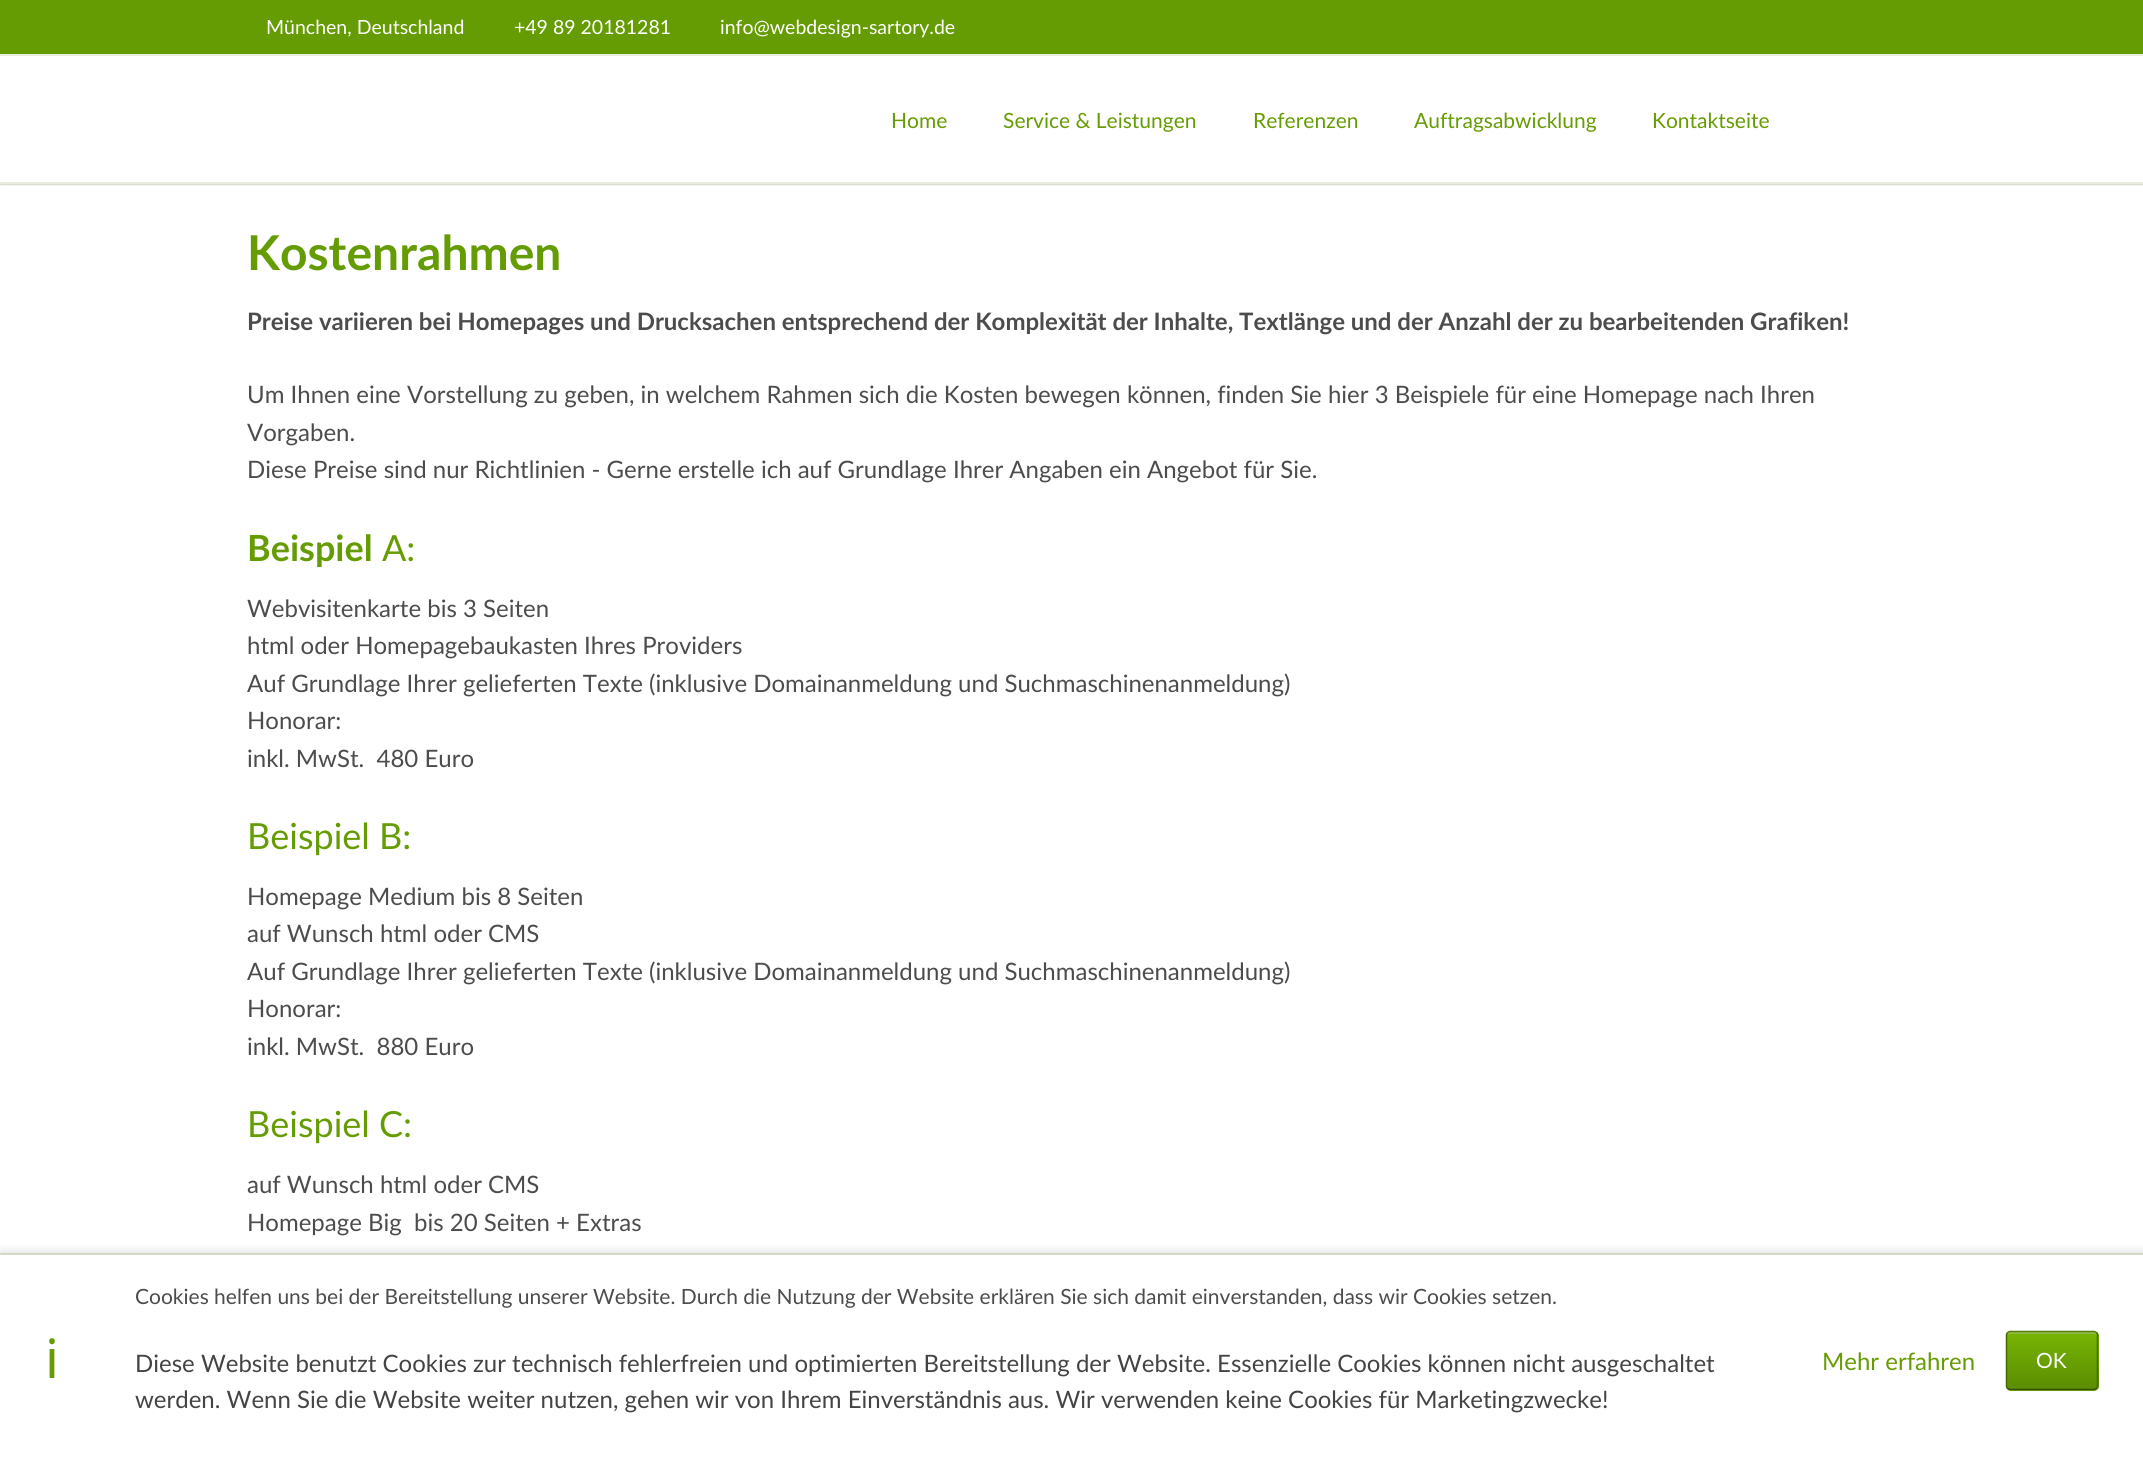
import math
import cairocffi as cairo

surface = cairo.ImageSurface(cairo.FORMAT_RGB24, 2143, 1467)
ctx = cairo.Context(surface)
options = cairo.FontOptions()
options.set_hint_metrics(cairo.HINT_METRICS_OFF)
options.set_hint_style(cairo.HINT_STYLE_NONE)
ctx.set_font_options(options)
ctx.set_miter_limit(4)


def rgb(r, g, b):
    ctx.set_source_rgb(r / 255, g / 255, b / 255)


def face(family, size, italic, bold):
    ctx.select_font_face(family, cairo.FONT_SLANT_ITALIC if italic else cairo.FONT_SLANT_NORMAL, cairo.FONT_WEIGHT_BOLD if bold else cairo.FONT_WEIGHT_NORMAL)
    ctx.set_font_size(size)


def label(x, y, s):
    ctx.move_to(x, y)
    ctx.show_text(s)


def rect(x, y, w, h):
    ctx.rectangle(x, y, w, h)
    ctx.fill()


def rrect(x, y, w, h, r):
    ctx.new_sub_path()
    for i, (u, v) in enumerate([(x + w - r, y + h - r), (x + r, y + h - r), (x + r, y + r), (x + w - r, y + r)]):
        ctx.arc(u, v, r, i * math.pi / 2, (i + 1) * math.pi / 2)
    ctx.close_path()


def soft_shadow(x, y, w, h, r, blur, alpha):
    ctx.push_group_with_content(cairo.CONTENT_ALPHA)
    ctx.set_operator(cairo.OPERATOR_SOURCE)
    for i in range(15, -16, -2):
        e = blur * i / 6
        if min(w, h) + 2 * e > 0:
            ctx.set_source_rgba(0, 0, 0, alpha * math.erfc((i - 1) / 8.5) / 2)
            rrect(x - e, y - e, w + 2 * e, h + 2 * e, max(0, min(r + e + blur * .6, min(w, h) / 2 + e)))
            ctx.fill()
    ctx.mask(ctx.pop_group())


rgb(255, 255, 255)
ctx.paint()
rgb(102, 156, 3)
rect(0, 0, 2143, 54)
rgb(232, 237, 222)
rect(0, 54, 2143, 2)
face('Lato', 19.5, 0, 0)
rgb(255, 255, 255)
label(266, 34, 'München, Deutschland')
label(514, 34, '+49 89 20181281')
label(720, 34, 'info@webdesign-sartory.de')
rgb(232, 237, 222)
rect(0, 184, 2143, 1)
ctx.save()
ctx.rectangle(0, 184, 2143, 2)
ctx.clip()
rgb(0, 0, 0)
soft_shadow(0, 57, 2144, 128, 0, 1.5, 0.1)
ctx.restore()
rect(0, 182, 2143, 2)
face('Lato', 21, 0, 0)
rgb(102, 156, 3)
label(891, 128, 'Home')
label(1003, 128, 'Service & Leistungen')
label(1253, 128, 'Referenzen')
label(1414, 128, 'Auftragsabwicklung')
label(1652, 128, 'Kontaktseite')
face('Lato', 48, 0, 1)
label(247, 270, 'Kostenrahmen')
face('Lato', 24, 0, 1)
rgb(77, 76, 76)
label(247, 330, 'Preise variieren bei Homepages und Drucksachen entsprechend der Komplexität der Inhalte, Textlänge und der Anzahl der zu bearbeitenden Grafiken!')
face('Lato', 24, 0, 0)
label(247, 403, 'Um Ihnen eine Vorstellung zu geben, in welchem Rahmen sich die Kosten bewegen können, finden Sie hier 3 Beispiele für eine Homepage nach Ihren')
label(247, 441, 'Vorgaben.')
label(247, 478, 'Diese Preise sind nur Richtlinien - Gerne erstelle ich auf Grundlage Ihrer Angaben ein Angebot für Sie.')
face('Lato', 36, 0, 1)
rgb(102, 156, 3)
label(247, 561, 'Beispiel')
face('Lato', 36, 0, 0)
label(382, 561, 'A:')
face('Lato', 24, 0, 0)
rgb(77, 76, 76)
label(247, 617, 'Webvisitenkarte bis 3 Seiten')
label(247, 654, 'html oder Homepagebaukasten Ihres Providers')
label(247, 692, 'Auf Grundlage Ihrer gelieferten Texte (inklusive Domainanmeldung und Suchmaschinenanmeldung)')
label(247, 729, 'Honorar:')
label(247, 767, 'inkl. MwSt.  480 Euro')
face('Lato', 36, 0, 0)
rgb(102, 156, 3)
label(247, 849, 'Beispiel B:')
face('Lato', 24, 0, 0)
rgb(77, 76, 76)
label(247, 905, 'Homepage Medium bis 8 Seiten')
label(247, 942, 'auf Wunsch html oder CMS')
label(247, 980, 'Auf Grundlage Ihrer gelieferten Texte (inklusive Domainanmeldung und Suchmaschinenanmeldung)')
label(247, 1017, 'Honorar:')
label(247, 1055, 'inkl. MwSt.  880 Euro')
face('Lato', 36, 0, 0)
rgb(102, 156, 3)
label(247, 1137, 'Beispiel C:')
face('Lato', 24, 0, 0)
rgb(77, 76, 76)
label(247, 1193, 'auf Wunsch html oder CMS')
label(247, 1231, 'Homepage Big  bis 20 Seiten + Extras')
rgb(0, 0, 0)
soft_shadow(0, 1250, 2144, 214, 0, 4, 0.1)
rgb(255, 255, 255)
rect(0, 1255, 2143, 212)
rgb(212, 218, 200)
rect(0, 1253, 2143, 2)
face('Noto Sans', 54, 0, 0)
rgb(102, 156, 3)
label(45, 1378, 'ℹ')
face('Lato', 21, 0, 0)
rgb(77, 76, 76)
label(135, 1304, 'Cookies helfen uns bei der Bereitstellung unserer Website. Durch die Nutzung der Website erklären Sie sich damit einverstanden, dass wir Cookies setzen.')
face('Lato', 24, 0, 0)
rgb(68, 68, 68)
label(135, 1372, 'Diese Website benutzt Cookies zur technisch fehlerfreien und optimierten Bereitstellung der Website. Essenzielle Cookies können nicht ausgeschaltet')
label(135, 1408, 'werden. Wenn Sie die Website weiter nutzen, gehen wir von Ihrem Einverständnis aus. Wir verwenden keine Cookies für Marketingzwecke!')
rgb(102, 156, 3)
label(1822, 1370, 'Mehr erfahren')
ctx.save()
rrect(2006, 1331, 93, 60, 5)
ctx.clip()
gradient = cairo.LinearGradient(2052, 1332, 2052, 1389)
gradient.add_color_stop_rgba(0, 0.463, 0.71, 0.012, 1)
gradient.add_color_stop_rgba(1, 0.361, 0.553, 0.012, 1)
ctx.set_source(gradient)
rect(2006, 1332, 93, 57)
gradient = cairo.LinearGradient(2052, 1389, 2052, 1446)
gradient.add_color_stop_rgba(0, 0.463, 0.71, 0.012, 1)
gradient.add_color_stop_rgba(1, 0.361, 0.553, 0.012, 1)
ctx.set_source(gradient)
rect(2006, 1389, 93, 2)
ctx.restore()
rgb(147, 185, 78)
ctx.new_path()
ctx.move_to(2010, 1334)
ctx.line_to(2094, 1334)
ctx.curve_to(2096, 1334, 2097, 1335, 2097, 1336)
ctx.curve_to(2097, 1328, 2084, 1332, 2080, 1332)
ctx.line_to(2024, 1332)
ctx.curve_to(2020, 1332, 2007, 1328, 2007, 1336)
ctx.curve_to(2007, 1335, 2008, 1334, 2010, 1334)
ctx.close_path()
ctx.fill()
ctx.new_path()
ctx.move_to(2007.5, 1332.5)
ctx.line_to(2009.5, 1331.5)
ctx.line_to(2094.5, 1331.5)
ctx.line_to(2096.5, 1332.5)
rgb(86, 131, 3)
ctx.set_line_width(1.5)
ctx.stroke()
ctx.new_path()
ctx.move_to(2096.5, 1332.5)
ctx.line_to(2097.5, 1334.5)
ctx.line_to(2097.5, 1386.5)
ctx.line_to(2096.5, 1388.5)
rgb(69, 106, 2)
ctx.stroke()
ctx.new_path()
ctx.move_to(2096.5, 1388.5)
ctx.line_to(2094.5, 1389.5)
ctx.line_to(2009.5, 1389.5)
ctx.line_to(2007.5, 1388.5)
rgb(53, 81, 2)
ctx.stroke()
ctx.new_path()
ctx.move_to(2007.5, 1388.5)
ctx.line_to(2006.5, 1386.5)
ctx.line_to(2006.5, 1334.5)
ctx.line_to(2007.5, 1332.5)
rgb(69, 106, 2)
ctx.stroke()
face('Lato', 21, 0, 0)
rgb(255, 255, 255)
label(2036, 1368, 'OK')
surface.write_to_png('render.png')
